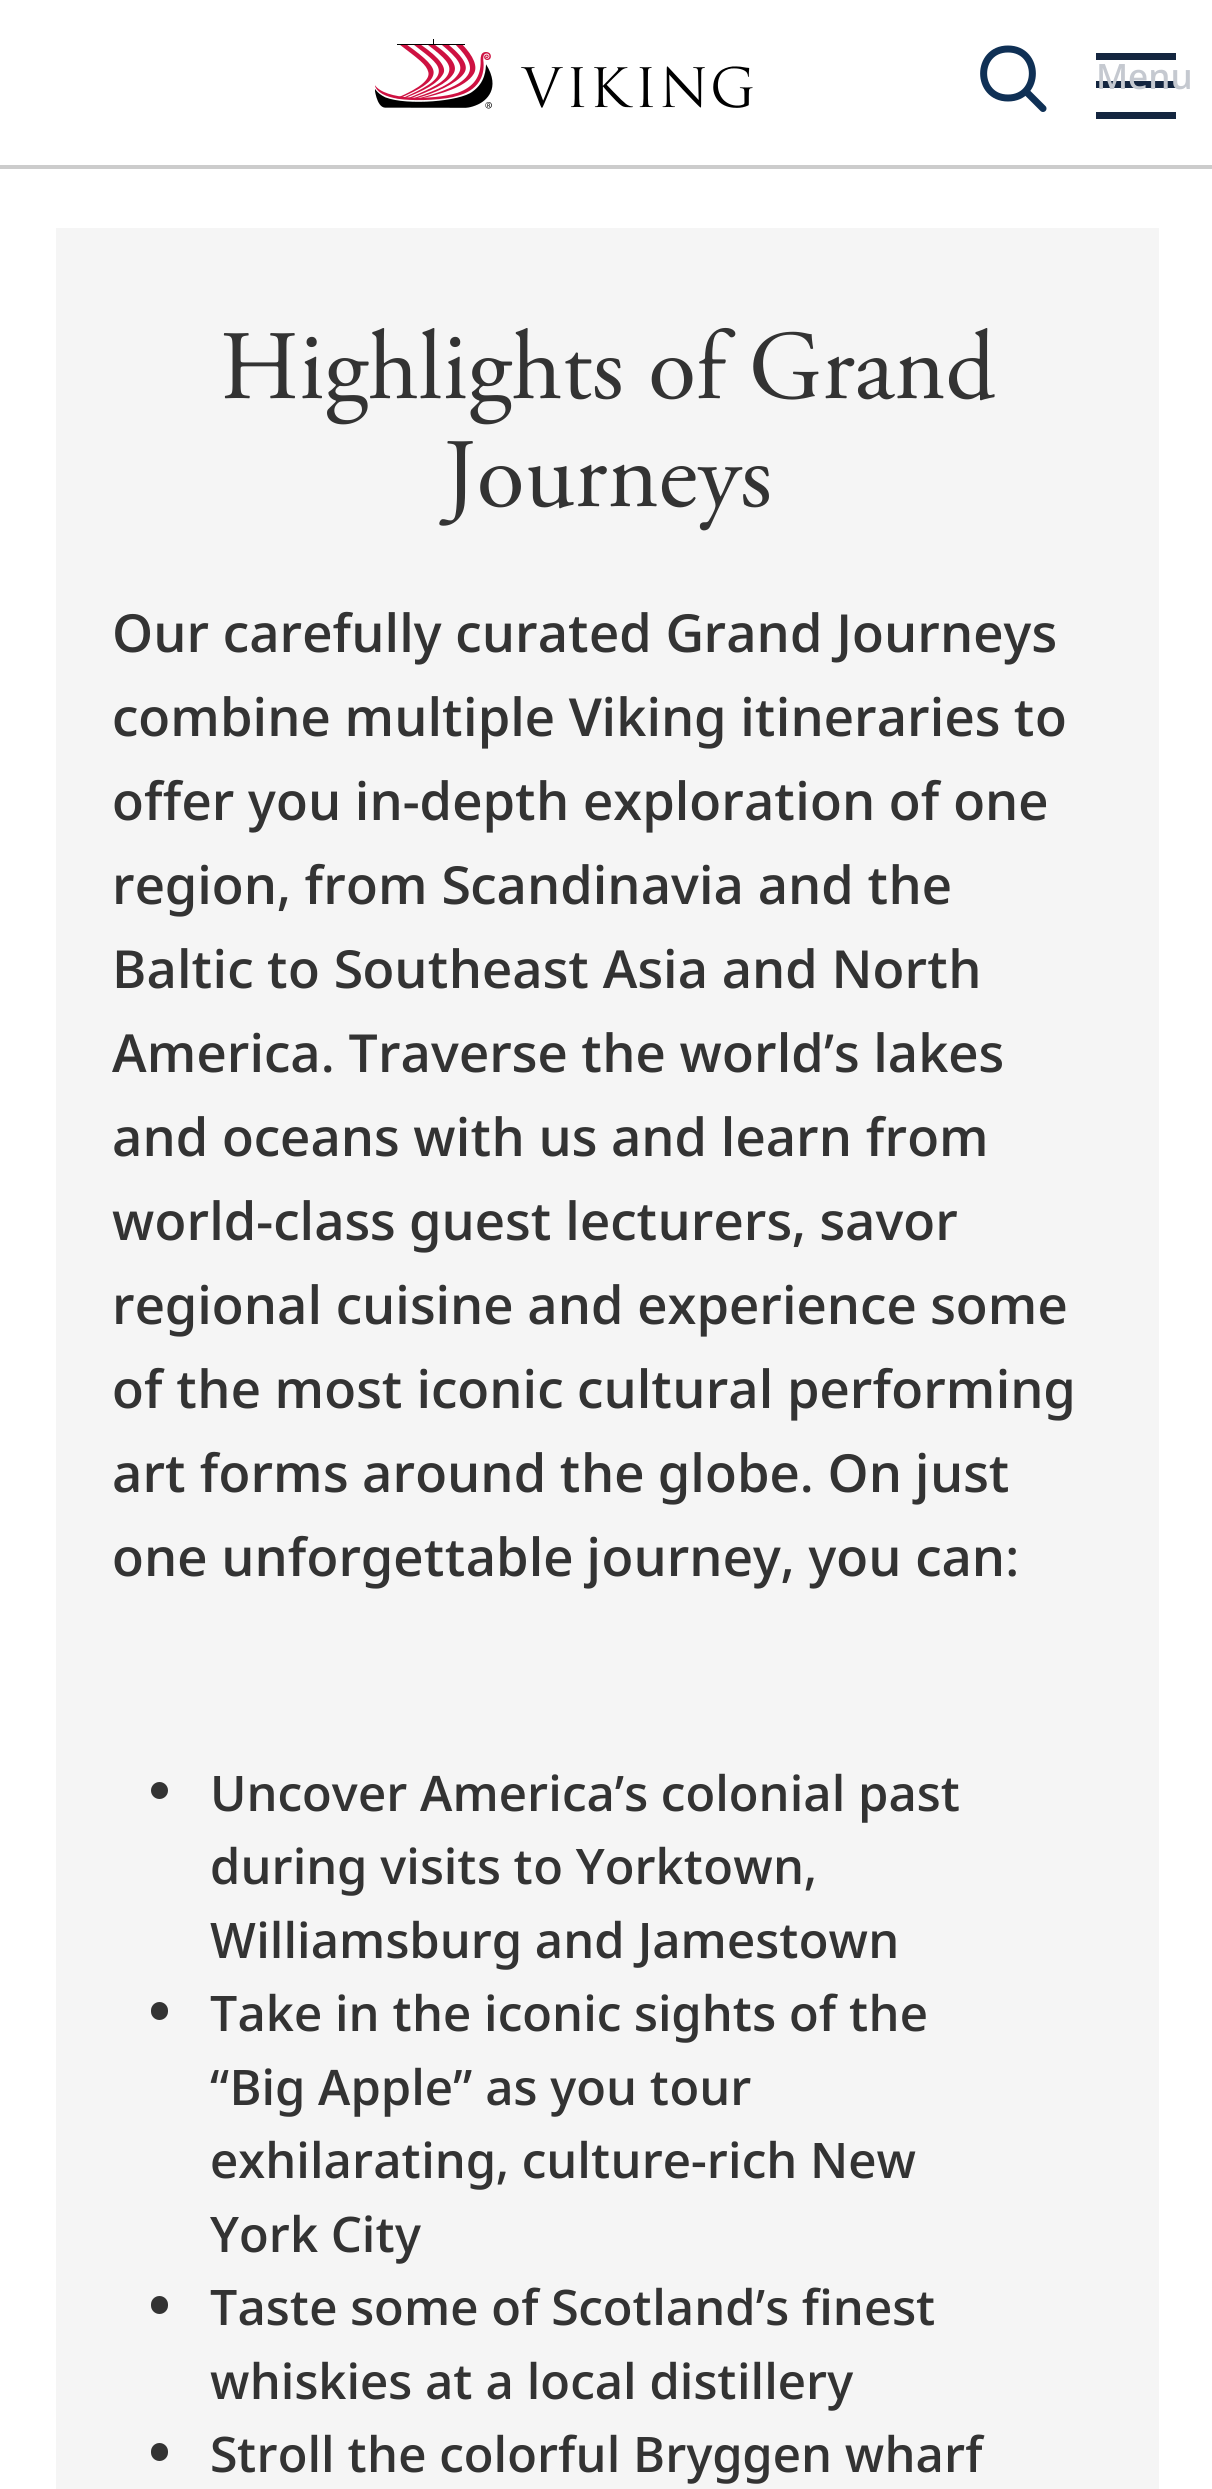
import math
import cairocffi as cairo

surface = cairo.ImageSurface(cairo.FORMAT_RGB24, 1212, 2489)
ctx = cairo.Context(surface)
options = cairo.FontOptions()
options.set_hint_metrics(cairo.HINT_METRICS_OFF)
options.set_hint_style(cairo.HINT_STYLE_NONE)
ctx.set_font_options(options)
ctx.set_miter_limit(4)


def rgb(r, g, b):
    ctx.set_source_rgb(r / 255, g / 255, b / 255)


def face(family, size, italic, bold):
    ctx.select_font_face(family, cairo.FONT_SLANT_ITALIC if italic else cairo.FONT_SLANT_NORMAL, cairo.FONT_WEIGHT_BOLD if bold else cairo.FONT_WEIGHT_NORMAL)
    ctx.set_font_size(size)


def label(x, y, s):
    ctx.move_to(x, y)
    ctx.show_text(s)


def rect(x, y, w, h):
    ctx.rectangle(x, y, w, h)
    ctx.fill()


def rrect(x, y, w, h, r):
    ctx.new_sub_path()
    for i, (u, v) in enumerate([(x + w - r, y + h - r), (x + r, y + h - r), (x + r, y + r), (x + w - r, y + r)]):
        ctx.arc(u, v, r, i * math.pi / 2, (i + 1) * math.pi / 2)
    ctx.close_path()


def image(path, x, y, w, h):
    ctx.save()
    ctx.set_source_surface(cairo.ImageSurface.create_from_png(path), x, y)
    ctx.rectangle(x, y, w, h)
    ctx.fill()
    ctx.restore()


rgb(255, 255, 255)
ctx.paint()
rgb(204, 204, 204)
rect(0, 165, 1212, 4)
image('image0.png', 375, 39, 378, 70)
ctx.new_path()
ctx.move_to(1008, 49)
ctx.curve_to(975.5, 49, 975.5, 98, 1008, 98)
ctx.curve_to(1040.5, 98, 1040.5, 49, 1008, 49)
ctx.close_path()
ctx.move_to(1043, 108.5)
ctx.line_to(1028, 93.5)
rgb(15, 48, 85)
ctx.set_line_width(7)
ctx.set_line_cap(cairo.LINE_CAP_ROUND)
ctx.set_line_join(cairo.LINE_JOIN_ROUND)
ctx.stroke()
rgb(20, 38, 64)
rect(1096, 53, 80, 7)
rect(1096, 81, 80, 7)
face('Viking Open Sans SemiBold', 35, 0, 0)
rgb(197, 201, 208)
label(1096, 89, 'Menu')
rgb(20, 38, 64)
rect(1096, 112, 80, 7)
rgb(245, 245, 245)
rect(56, 228, 1103, 2261)
face('Adobe Garamond', 98, 0, 0)
rgb(51, 51, 51)
label(220, 398, 'Highlights of Grand')
label(443, 506, 'Journeys')
face('Viking Open Sans SemiBold', 52.5, 0, 0)
label(112, 652, 'Our carefully curated Grand Journeys')
label(112, 736, 'combine multiple Viking itineraries to')
label(112, 820, 'offer you in-depth exploration of one')
label(112, 904, 'region, from Scandinavia and the')
label(112, 988, 'Baltic to Southeast Asia and North')
label(112, 1072, 'America. Traverse the world’s lakes')
label(112, 1156, 'and oceans with us and learn from')
label(112, 1240, 'world-class guest lecturers, savor')
label(112, 1324, 'regional cuisine and experience some')
label(112, 1408, 'of the most iconic cultural performing')
label(112, 1492, 'art forms around the globe. On just')
label(112, 1576, 'one unforgettable journey, you can:')
ctx.new_path()
ctx.arc(159.5, 1790.5, 8.5, 0, 2 * math.pi)
ctx.fill()
face('Viking Open Sans SemiBold', 49, 0, 0)
label(210, 1811, 'Uncover America’s colonial past')
label(210, 1884, 'during visits to Yorktown,')
label(210, 1958, 'Williamsburg and Jamestown')
rrect(151, 2002, 17, 18, 8.5)
ctx.fill()
label(210, 2031, 'Take in the iconic sights of the')
label(210, 2105, '“Big Apple” as you tour')
label(210, 2178, 'exhilarating, culture-rich New')
label(210, 2252, 'York City')
rrect(151, 2296, 17, 18, 8.5)
ctx.fill()
label(210, 2325, 'Taste some of Scotland’s finest')
label(210, 2399, 'whiskies at a local distillery')
rrect(151, 2443, 17, 18, 8.5)
ctx.fill()
label(210, 2472, 'Stroll the colorful Bryggen wharf')
surface.write_to_png('render.png')
